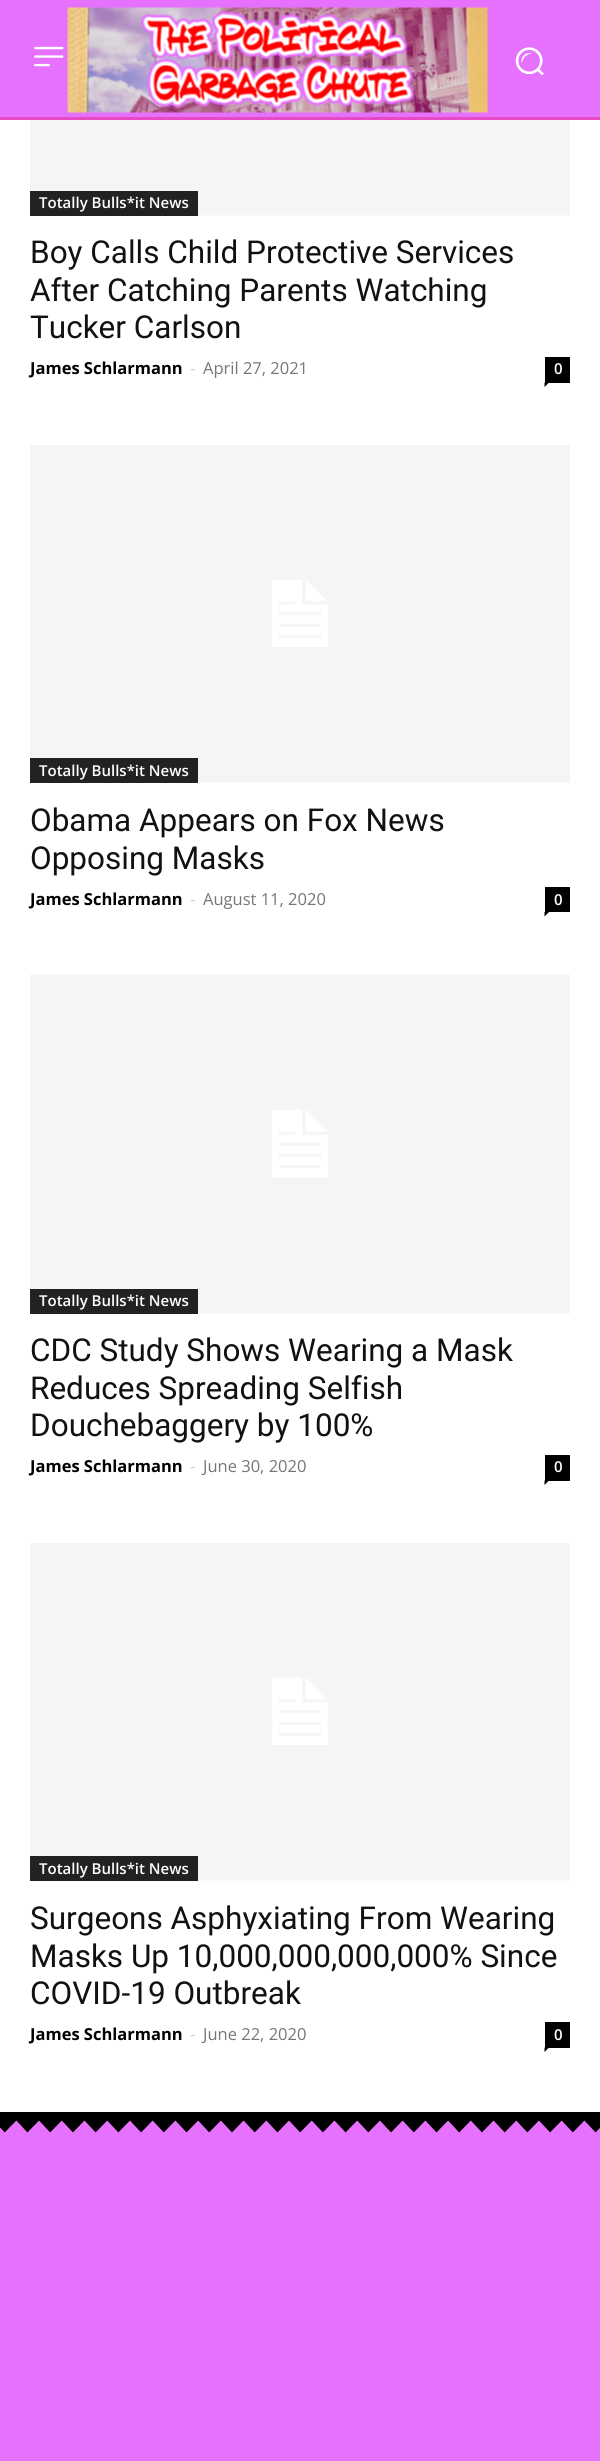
import math
import cairocffi as cairo

surface = cairo.ImageSurface(cairo.FORMAT_RGB24, 600, 2461)
ctx = cairo.Context(surface)
options = cairo.FontOptions()
options.set_hint_metrics(cairo.HINT_METRICS_OFF)
options.set_hint_style(cairo.HINT_STYLE_NONE)
ctx.set_font_options(options)
ctx.set_miter_limit(4)


def rgb(r, g, b):
    ctx.set_source_rgb(r / 255, g / 255, b / 255)


def face(family, size, italic, bold):
    ctx.select_font_face(family, cairo.FONT_SLANT_ITALIC if italic else cairo.FONT_SLANT_NORMAL, cairo.FONT_WEIGHT_BOLD if bold else cairo.FONT_WEIGHT_NORMAL)
    ctx.set_font_size(size)


def label(x, y, s):
    ctx.move_to(x, y)
    ctx.show_text(s)


def rect(x, y, w, h):
    ctx.rectangle(x, y, w, h)
    ctx.fill()


def image(path, x, y, w, h):
    ctx.save()
    ctx.set_source_surface(cairo.ImageSurface.create_from_png(path), x, y)
    ctx.rectangle(x, y, w, h)
    ctx.fill()
    ctx.restore()


rgb(255, 255, 255)
ctx.paint()
rgb(231, 113, 255)
rect(0, 0, 600, 117)
rgb(231, 74, 195)
rect(0, 117, 600, 3)
image('image0.png', 34, 46, 30, 21)
image('image1.png', 67, 7, 421, 106)
image('image2.png', 515, 47, 29, 29)
image('image3.png', 30, 120, 540, 96)
rgb(34, 34, 34)
rect(30, 191, 168, 25)
face('Open Sans SemiBold', 15, 0, 0)
rgb(255, 255, 255)
label(39, 208, 'Totally Bulls*it News')
face('Roboto', 31.5, 0, 0)
rgb(17, 17, 17)
label(30, 263, 'Boy Calls Child Protective Services')
label(30, 301, 'After Catching Parents Watching')
label(30, 338, 'Tucker Carlson')
face('Open Sans', 16.5, 0, 1)
rgb(0, 0, 0)
label(30, 374, 'James Schlarmann')
face('Open Sans', 16.5, 0, 0)
rgb(204, 204, 204)
label(190, 374, '-')
rgb(118, 118, 118)
label(203, 374, 'April 27, 2021')
rgb(0, 0, 0)
rect(545, 357, 25, 26)
face('Open Sans SemiBold', 15, 0, 0)
rgb(255, 255, 255)
label(554, 374, '0')
rgb(0, 0, 0)
ctx.new_path()
ctx.move_to(544.5, 382.5)
ctx.line_to(549, 382.5)
ctx.line_to(544.5, 387)
ctx.close_path()
ctx.fill()
image('image4.png', 30, 445, 540, 338)
rgb(34, 34, 34)
rect(30, 758, 168, 25)
rgb(255, 255, 255)
label(39, 776, 'Totally Bulls*it News')
face('Roboto', 31.5, 0, 0)
rgb(17, 17, 17)
label(30, 831, 'Obama Appears on Fox News')
label(30, 869, 'Opposing Masks')
face('Open Sans', 16.5, 0, 1)
rgb(0, 0, 0)
label(30, 905, 'James Schlarmann')
face('Open Sans', 16.5, 0, 0)
rgb(204, 204, 204)
label(190, 905, '-')
rgb(118, 118, 118)
label(203, 905, 'August 11, 2020')
rgb(0, 0, 0)
rect(545, 887, 25, 25)
face('Open Sans SemiBold', 15, 0, 0)
rgb(255, 255, 255)
label(554, 905, '0')
rgb(0, 0, 0)
ctx.new_path()
ctx.move_to(544.5, 912)
ctx.line_to(549, 912)
ctx.line_to(544.5, 916.5)
ctx.close_path()
ctx.fill()
image('image5.png', 30, 974, 540, 340)
rgb(34, 34, 34)
rect(30, 1289, 168, 25)
rgb(255, 255, 255)
label(39, 1306, 'Totally Bulls*it News')
face('Roboto', 31.5, 0, 0)
rgb(17, 17, 17)
label(30, 1361, 'CDC Study Shows Wearing a Mask')
label(30, 1399, 'Reduces Spreading Selfish')
label(30, 1436, 'Douchebaggery by 100%')
face('Open Sans', 16.5, 0, 1)
rgb(0, 0, 0)
label(30, 1472, 'James Schlarmann')
face('Open Sans', 16.5, 0, 0)
rgb(204, 204, 204)
label(190, 1472, '-')
rgb(118, 118, 118)
label(203, 1472, 'June 30, 2020')
rgb(0, 0, 0)
rect(545, 1455, 25, 26)
face('Open Sans SemiBold', 15, 0, 0)
rgb(255, 255, 255)
label(554, 1472, '0')
rgb(0, 0, 0)
ctx.new_path()
ctx.move_to(544.5, 1480.5)
ctx.line_to(549, 1480.5)
ctx.line_to(544.5, 1485)
ctx.close_path()
ctx.fill()
image('image4.png', 30, 1543, 540, 338)
rgb(34, 34, 34)
rect(30, 1856, 168, 25)
rgb(255, 255, 255)
label(39, 1874, 'Totally Bulls*it News')
face('Roboto', 31.5, 0, 0)
rgb(17, 17, 17)
label(30, 1929, 'Surgeons Asphyxiating From Wearing')
label(30, 1967, 'Masks Up 10,000,000,000,000% Since')
label(30, 2004, 'COVID-19 Outbreak')
face('Open Sans', 16.5, 0, 1)
rgb(0, 0, 0)
label(30, 2040, 'James Schlarmann')
face('Open Sans', 16.5, 0, 0)
rgb(204, 204, 204)
label(190, 2040, '-')
rgb(118, 118, 118)
label(203, 2040, 'June 22, 2020')
rgb(0, 0, 0)
rect(545, 2022, 25, 26)
face('Open Sans SemiBold', 15, 0, 0)
rgb(255, 255, 255)
label(554, 2040, '0')
rgb(0, 0, 0)
ctx.new_path()
ctx.move_to(544.5, 2047.5)
ctx.line_to(549, 2047.5)
ctx.line_to(544.5, 2052)
ctx.close_path()
ctx.fill()
rgb(231, 113, 255)
rect(0, 2120, 600, 341)
image('image6.png', 0, 2112, 600, 21)
surface.write_to_png('render.png')
